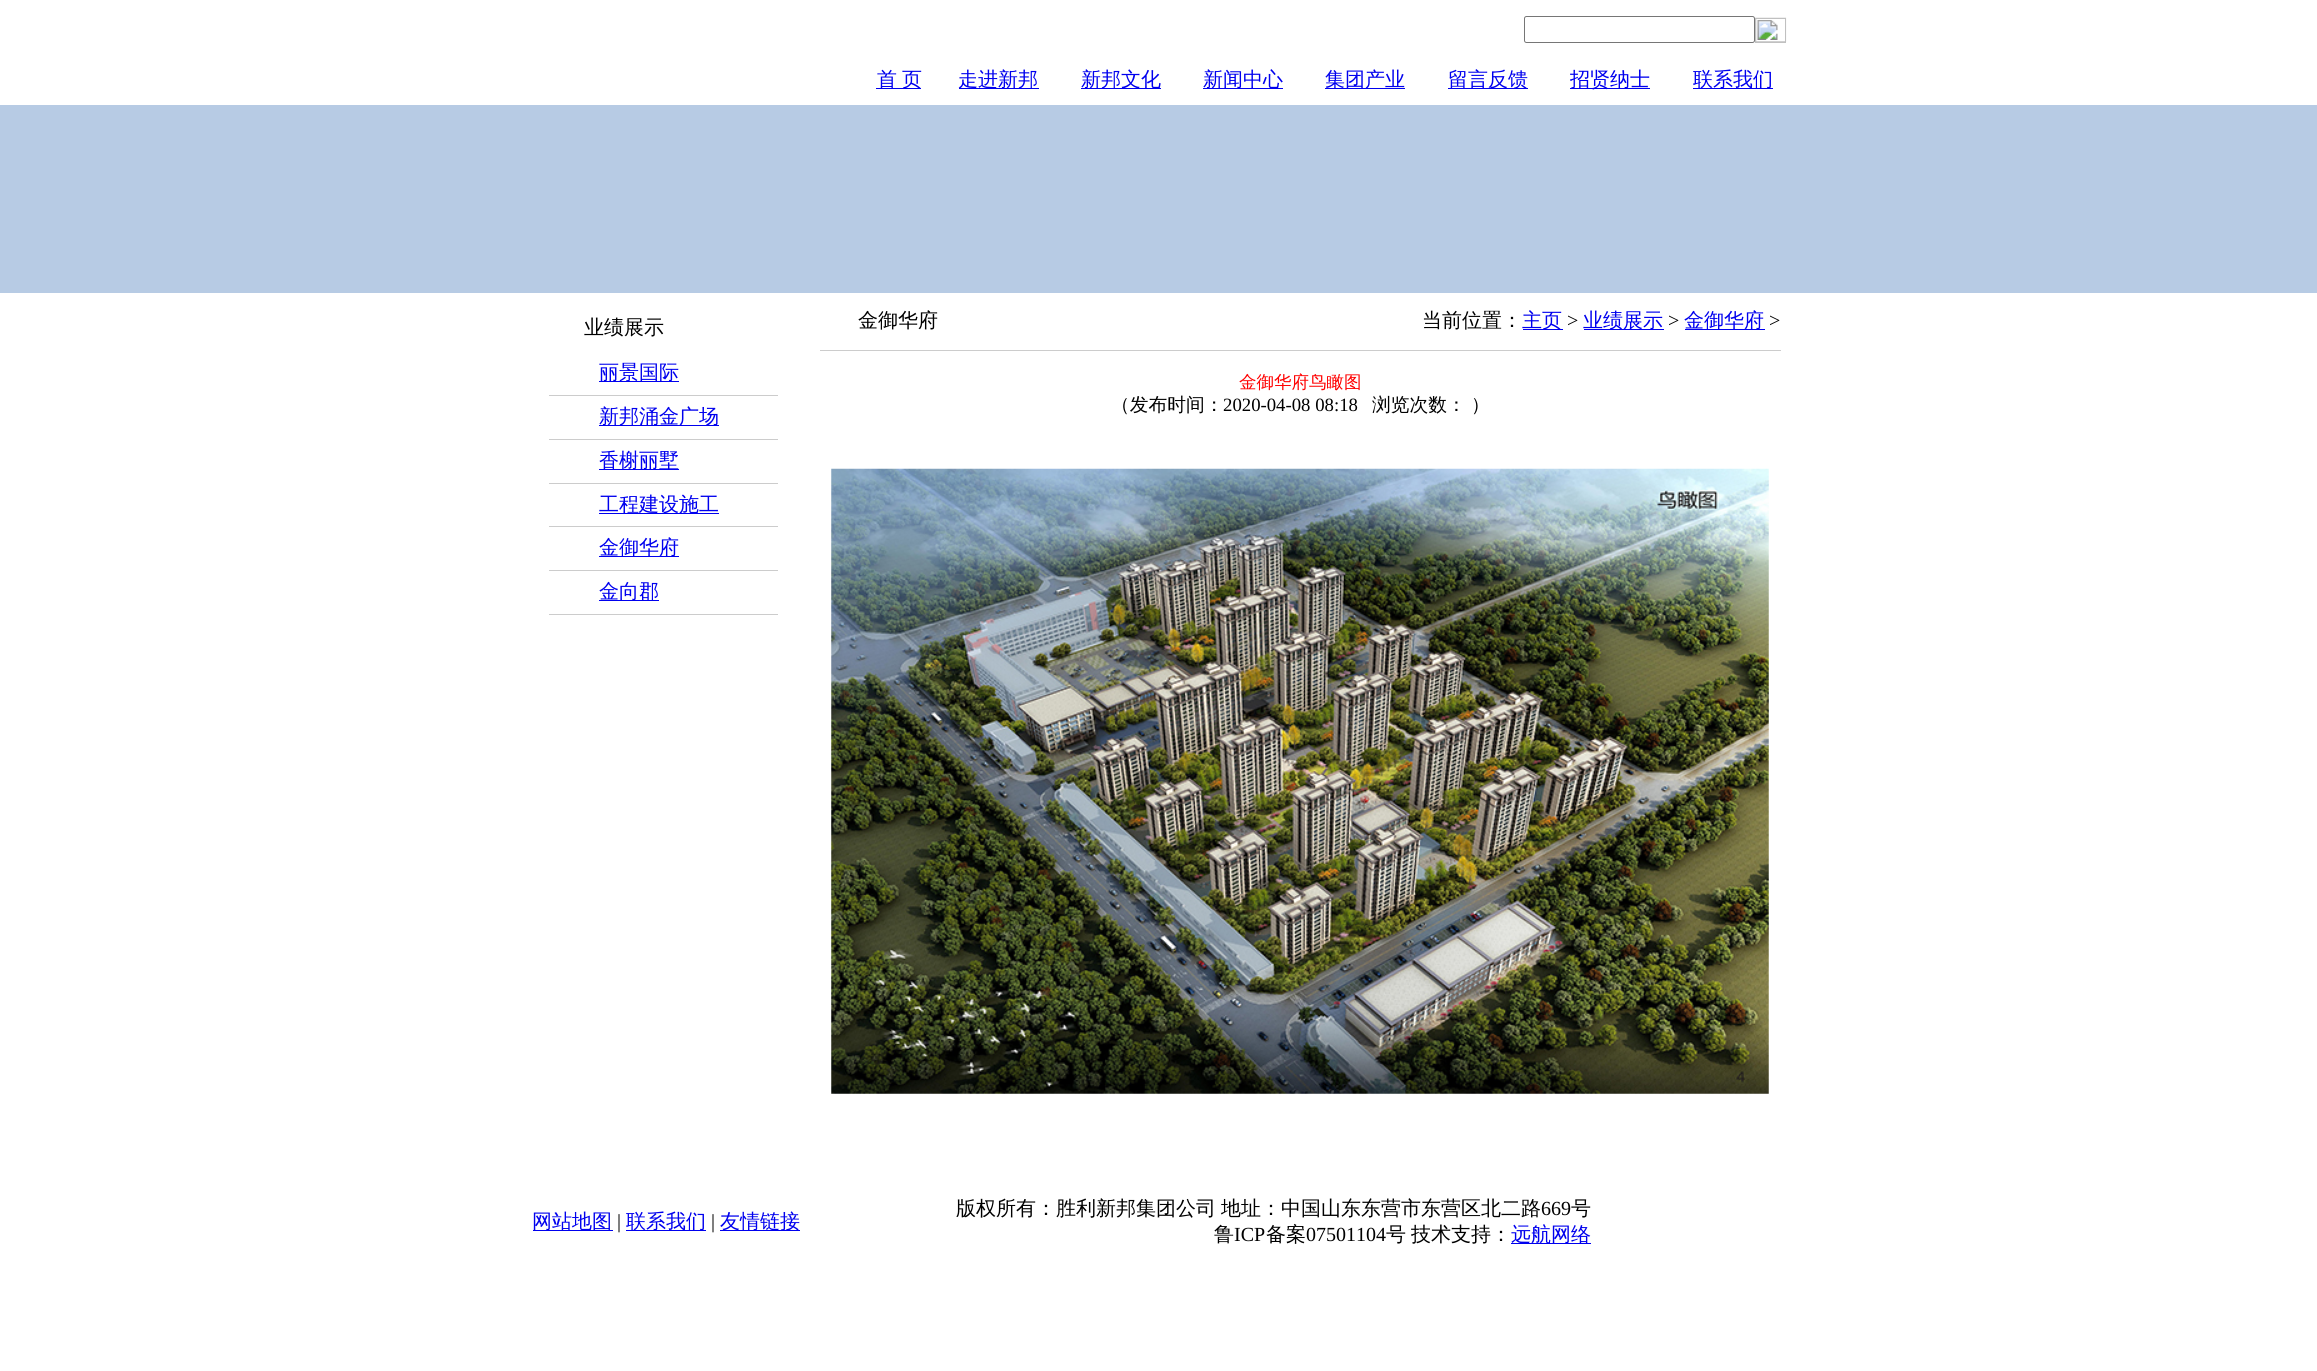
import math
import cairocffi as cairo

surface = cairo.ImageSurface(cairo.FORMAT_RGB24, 2317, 1371)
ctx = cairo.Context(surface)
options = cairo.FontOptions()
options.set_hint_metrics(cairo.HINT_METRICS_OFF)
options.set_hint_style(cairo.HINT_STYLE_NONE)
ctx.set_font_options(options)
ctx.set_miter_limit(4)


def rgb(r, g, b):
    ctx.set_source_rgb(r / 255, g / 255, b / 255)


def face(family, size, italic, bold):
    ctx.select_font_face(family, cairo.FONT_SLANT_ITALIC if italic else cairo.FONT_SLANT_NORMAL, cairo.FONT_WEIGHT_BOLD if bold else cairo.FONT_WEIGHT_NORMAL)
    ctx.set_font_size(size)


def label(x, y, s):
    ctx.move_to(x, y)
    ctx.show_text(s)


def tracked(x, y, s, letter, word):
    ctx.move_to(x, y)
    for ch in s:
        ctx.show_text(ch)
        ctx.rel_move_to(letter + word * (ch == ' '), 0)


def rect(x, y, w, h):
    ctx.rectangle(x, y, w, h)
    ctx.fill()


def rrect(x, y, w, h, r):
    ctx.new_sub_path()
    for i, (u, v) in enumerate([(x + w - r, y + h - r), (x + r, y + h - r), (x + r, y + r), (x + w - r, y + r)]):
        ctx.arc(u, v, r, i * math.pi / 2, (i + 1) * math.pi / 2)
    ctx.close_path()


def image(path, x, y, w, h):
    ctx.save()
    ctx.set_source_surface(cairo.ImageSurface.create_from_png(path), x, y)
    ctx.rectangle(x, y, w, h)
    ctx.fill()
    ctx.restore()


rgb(255, 255, 255)
ctx.paint()
rrect(1524.5, 16.5, 230, 26, 2)
rgb(118, 118, 118)
ctx.set_line_width(1)
ctx.stroke()
image('image0.png', 1755, 17, 32, 25)
ctx.rectangle(1755.5, 18.5, 30, 24)
rgb(192, 192, 192)
ctx.stroke()
rgb(0, 0, 238)
rect(876, 88, 45, 1)
face('WenQuanYi Zen Hei Medium', 20, 0, 0)
tracked(877, 86, '首 页', 0, -1)
rect(959, 88, 80, 1)
label(958, 86, '走进新邦')
rect(1081, 88, 80, 1)
label(1081, 86, '新邦文化')
rect(1203, 88, 80, 1)
label(1203, 86, '新闻中心')
rect(1325, 88, 80, 1)
label(1325, 86, '集团产业')
rect(1448, 88, 80, 1)
label(1448, 86, '留言反馈')
rect(1570, 88, 80, 1)
label(1570, 86, '招贤纳士')
rect(1693, 88, 80, 1)
label(1693, 86, '联系我们')
rgb(183, 203, 228)
rect(0, 105, 2317, 188)
rgb(0, 0, 0)
label(584, 334, '业绩展示')
rgb(0, 0, 238)
rect(599, 381, 80, 1)
label(599, 379, '丽景国际')
rgb(204, 204, 204)
rect(549, 395, 229, 1)
rgb(0, 0, 238)
rect(599, 425, 120, 1)
label(599, 423, '新邦涌金广场')
rgb(204, 204, 204)
rect(549, 439, 229, 1)
rgb(0, 0, 238)
rect(599, 469, 80, 1)
label(599, 467, '香榭丽墅')
rgb(204, 204, 204)
rect(549, 483, 229, 1)
rgb(0, 0, 238)
rect(599, 513, 120, 1)
label(599, 511, '工程建设施工')
rgb(204, 204, 204)
rect(549, 526, 229, 1)
rgb(0, 0, 238)
rect(599, 556, 80, 1)
label(599, 554, '金御华府')
rgb(204, 204, 204)
rect(549, 570, 229, 1)
rgb(0, 0, 238)
rect(599, 600, 60, 1)
label(599, 598, '金向郡')
rgb(204, 204, 204)
rect(549, 614, 229, 1)
rgb(0, 0, 0)
label(858, 327, '金御华府')
label(1422, 327, '当前位置：')
rgb(0, 0, 238)
rect(1523, 329, 40, 1)
label(1522, 327, '主页')
face('Liberation Serif', 20, 0, 0)
rgb(0, 0, 0)
label(1567, 327, '>')
rgb(0, 0, 238)
rect(1584, 329, 80, 1)
face('WenQuanYi Zen Hei Medium', 20, 0, 0)
label(1583, 327, '业绩展示')
face('Liberation Serif', 20, 0, 0)
rgb(0, 0, 0)
label(1668, 327, '>')
rgb(0, 0, 238)
rect(1685, 329, 80, 1)
face('WenQuanYi Zen Hei Medium', 20, 0, 0)
label(1684, 327, '金御华府')
face('Liberation Serif', 20, 0, 0)
rgb(0, 0, 0)
label(1769, 327, '>')
rgb(204, 204, 204)
rect(820, 350, 961, 1)
face('WenQuanYi Zen Hei Medium', 17.5, 0, 0)
rgb(255, 0, 0)
label(1239, 388, '金御华府鸟瞰图')
face('WenQuanYi Zen Hei Medium', 18.75, 0, 0)
rgb(0, 0, 0)
label(1111, 411, '（发布时间：')
face('Liberation Serif', 18.75, 0, 0)
label(1223, 411, '2020-04-08 08:18')
face('WenQuanYi Zen Hei Medium', 18.75, 0, 0)
label(1372, 411, '浏览次数：')
label(1471, 411, '）')
image('image1.png', 831, 468, 938, 626)
rgb(0, 0, 238)
rect(533, 1230, 80, 1)
face('WenQuanYi Zen Hei Medium', 20, 0, 0)
label(532, 1228, '网站地图')
face('Liberation Serif', 20, 0, 0)
rgb(0, 0, 0)
label(617, 1228, '|')
rgb(0, 0, 238)
rect(626, 1230, 80, 1)
face('WenQuanYi Zen Hei Medium', 20, 0, 0)
label(626, 1228, '联系我们')
face('Liberation Serif', 20, 0, 0)
rgb(0, 0, 0)
label(711, 1228, '|')
rgb(0, 0, 238)
rect(720, 1230, 80, 1)
face('WenQuanYi Zen Hei Medium', 20, 0, 0)
label(720, 1228, '友情链接')
rgb(0, 0, 0)
tracked(956, 1215, '版权所有：胜利新邦集团公司 地址：中国山东东营市东营区北二路', 0, -1)
face('Liberation Serif', 20, 0, 0)
label(1541, 1215, '669')
face('WenQuanYi Zen Hei Medium', 20, 0, 0)
label(1571, 1215, '号')
label(1214, 1241, '鲁')
face('Liberation Serif', 20, 0, 0)
label(1234, 1241, 'ICP')
face('WenQuanYi Zen Hei Medium', 20, 0, 0)
label(1266, 1241, '备案')
face('Liberation Serif', 20, 0, 0)
label(1306, 1241, '07501104')
face('WenQuanYi Zen Hei Medium', 20, 0, 0)
tracked(1386, 1241, '号 技术支持：', 0, -1)
rgb(0, 0, 238)
rect(1511, 1243, 80, 1)
label(1511, 1241, '远航网络')
surface.write_to_png('render.png')
